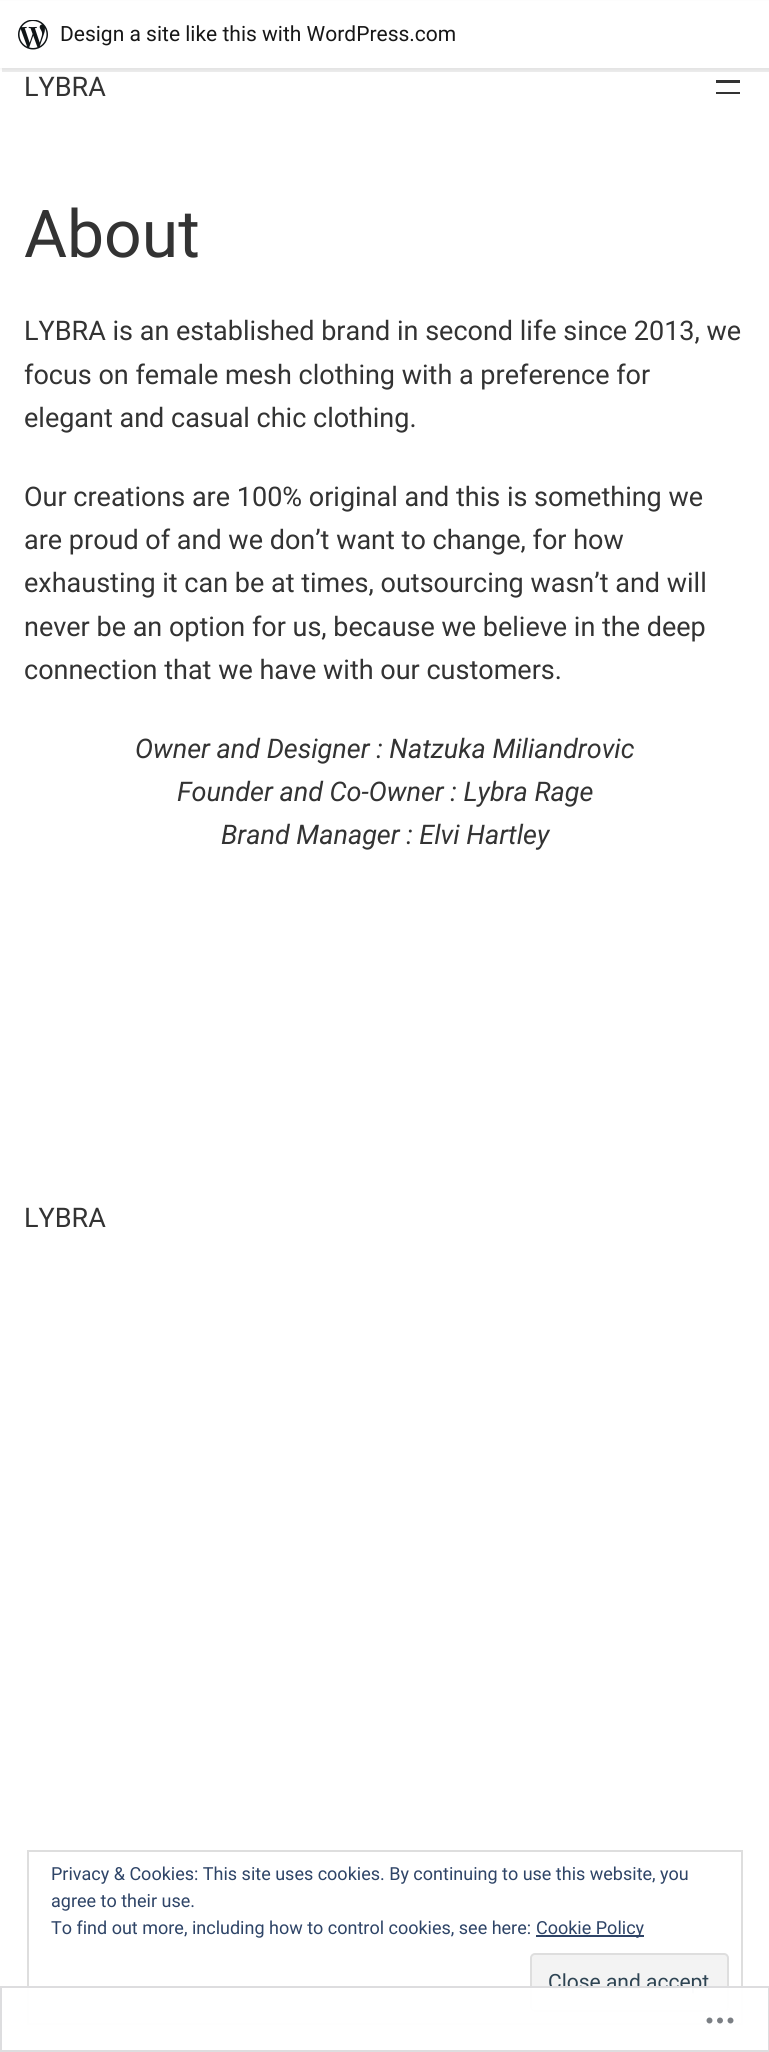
import math
import cairocffi as cairo

surface = cairo.ImageSurface(cairo.FORMAT_RGB24, 769, 2052)
ctx = cairo.Context(surface)
options = cairo.FontOptions()
options.set_hint_metrics(cairo.HINT_METRICS_OFF)
options.set_hint_style(cairo.HINT_STYLE_NONE)
ctx.set_font_options(options)
ctx.set_miter_limit(4)


def rgb(r, g, b):
    ctx.set_source_rgb(r / 255, g / 255, b / 255)


def face(family, size, italic, bold):
    ctx.select_font_face(family, cairo.FONT_SLANT_ITALIC if italic else cairo.FONT_SLANT_NORMAL, cairo.FONT_WEIGHT_BOLD if bold else cairo.FONT_WEIGHT_NORMAL)
    ctx.set_font_size(size)


def label(x, y, s):
    ctx.move_to(x, y)
    ctx.show_text(s)


def rect(x, y, w, h):
    ctx.rectangle(x, y, w, h)
    ctx.fill()


def rrect(x, y, w, h, r):
    ctx.new_sub_path()
    for i, (u, v) in enumerate([(x + w - r, y + h - r), (x + r, y + h - r), (x + r, y + r), (x + w - r, y + r)]):
        ctx.arc(u, v, r, i * math.pi / 2, (i + 1) * math.pi / 2)
    ctx.close_path()


def soft_shadow(x, y, w, h, r, blur, alpha):
    ctx.push_group_with_content(cairo.CONTENT_ALPHA)
    ctx.set_operator(cairo.OPERATOR_SOURCE)
    for i in range(15, -16, -2):
        e = blur * i / 6
        if min(w, h) + 2 * e > 0:
            ctx.set_source_rgba(0, 0, 0, alpha * math.erfc((i - 1) / 8.5) / 2)
            rrect(x - e, y - e, w + 2 * e, h + 2 * e, max(0, min(r + e + blur * .6, min(w, h) / 2 + e)))
            ctx.fill()
    ctx.mask(ctx.pop_group())


def image(path, x, y, w, h):
    ctx.save()
    ctx.set_source_surface(cairo.ImageSurface.create_from_png(path), x, y)
    ctx.rectangle(x, y, w, h)
    ctx.fill()
    ctx.restore()


rgb(255, 255, 255)
ctx.paint()
rgb(0, 0, 0)
soft_shadow(0, 2, 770, 67, 0, 1.5, 0.05)
ctx.set_source_rgba(0, 0, 0, 0.08)
ctx.new_path()
ctx.move_to(2, 68)
ctx.line_to(2, 72)
ctx.line_to(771, 72)
ctx.line_to(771, 5)
ctx.line_to(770, 5)
ctx.line_to(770, 68)
ctx.close_path()
ctx.fill()
rgb(255, 255, 255)
rect(0, 1, 769, 67)
image('image0.png', 18, 20, 30, 30)
face('Roboto', 21, 0, 0)
rgb(23, 23, 23)
label(60, 41, 'Design a site like this with WordPress.com')
face('Roboto', 27, 0, 0)
rgb(51, 51, 51)
label(24, 96, 'LYBRA')
rect(716, 80, 24, 3)
rect(716, 92, 24, 2)
face('Roboto', 66, 0, 0)
label(24, 257, 'About')
face('Roboto', 27, 0, 0)
label(24, 340, 'LYBRA is an established brand in second life since 2013, we')
label(24, 384, 'focus on female mesh clothing with a preference for')
label(24, 427, 'elegant and casual chic clothing.')
label(24, 506, 'Our creations are 100% original and this is something we')
label(24, 549, 'are proud of and we don’t want to change, for how')
label(24, 592, 'exhausting it can be at times, outsourcing wasn’t and will')
label(24, 636, 'never be an option for us, because we believe in the deep')
label(24, 679, 'connection that we have with our customers.')
face('Roboto', 27, 1, 0)
label(135, 758, 'Owner and Designer : Natzuka Miliandrovic')
label(177, 801, 'Founder and Co-Owner : Lybra Rage')
label(221, 844, 'Brand Manager : Elvi Hartley')
face('Roboto', 27, 0, 0)
label(24, 1227, 'LYBRA')
ctx.rectangle(28, 1851, 714, 173)
rgb(222, 222, 222)
ctx.stroke()
face('Roboto', 18, 0, 0)
rgb(46, 68, 103)
label(51, 1880, 'Privacy & Cookies: This site uses cookies. By continuing to use this website, you')
label(51, 1907, 'agree to their use.')
label(51, 1934, 'To find out more, including how to control cookies, see here:')
rect(536, 1935, 108, 2)
label(536, 1934, 'Cookie Policy')
rgb(243, 243, 243)
rrect(531, 1954, 197, 57, 4)
ctx.fill_preserve()
rgb(222, 222, 222)
ctx.stroke()
face('Roboto', 21, 0, 0)
rgb(46, 68, 83)
label(548, 1989, 'Close and accept')
ctx.set_source_rgba(1, 1, 1, 0.98)
rect(27, 1986, 716, 39)
ctx.rectangle(1, 1987, 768, 64)
ctx.set_source_rgba(0.863, 0.863, 0.871, 0.98)
ctx.stroke()
image('image1.png', 706, 2017, 28, 7)
surface.write_to_png('render.png')
